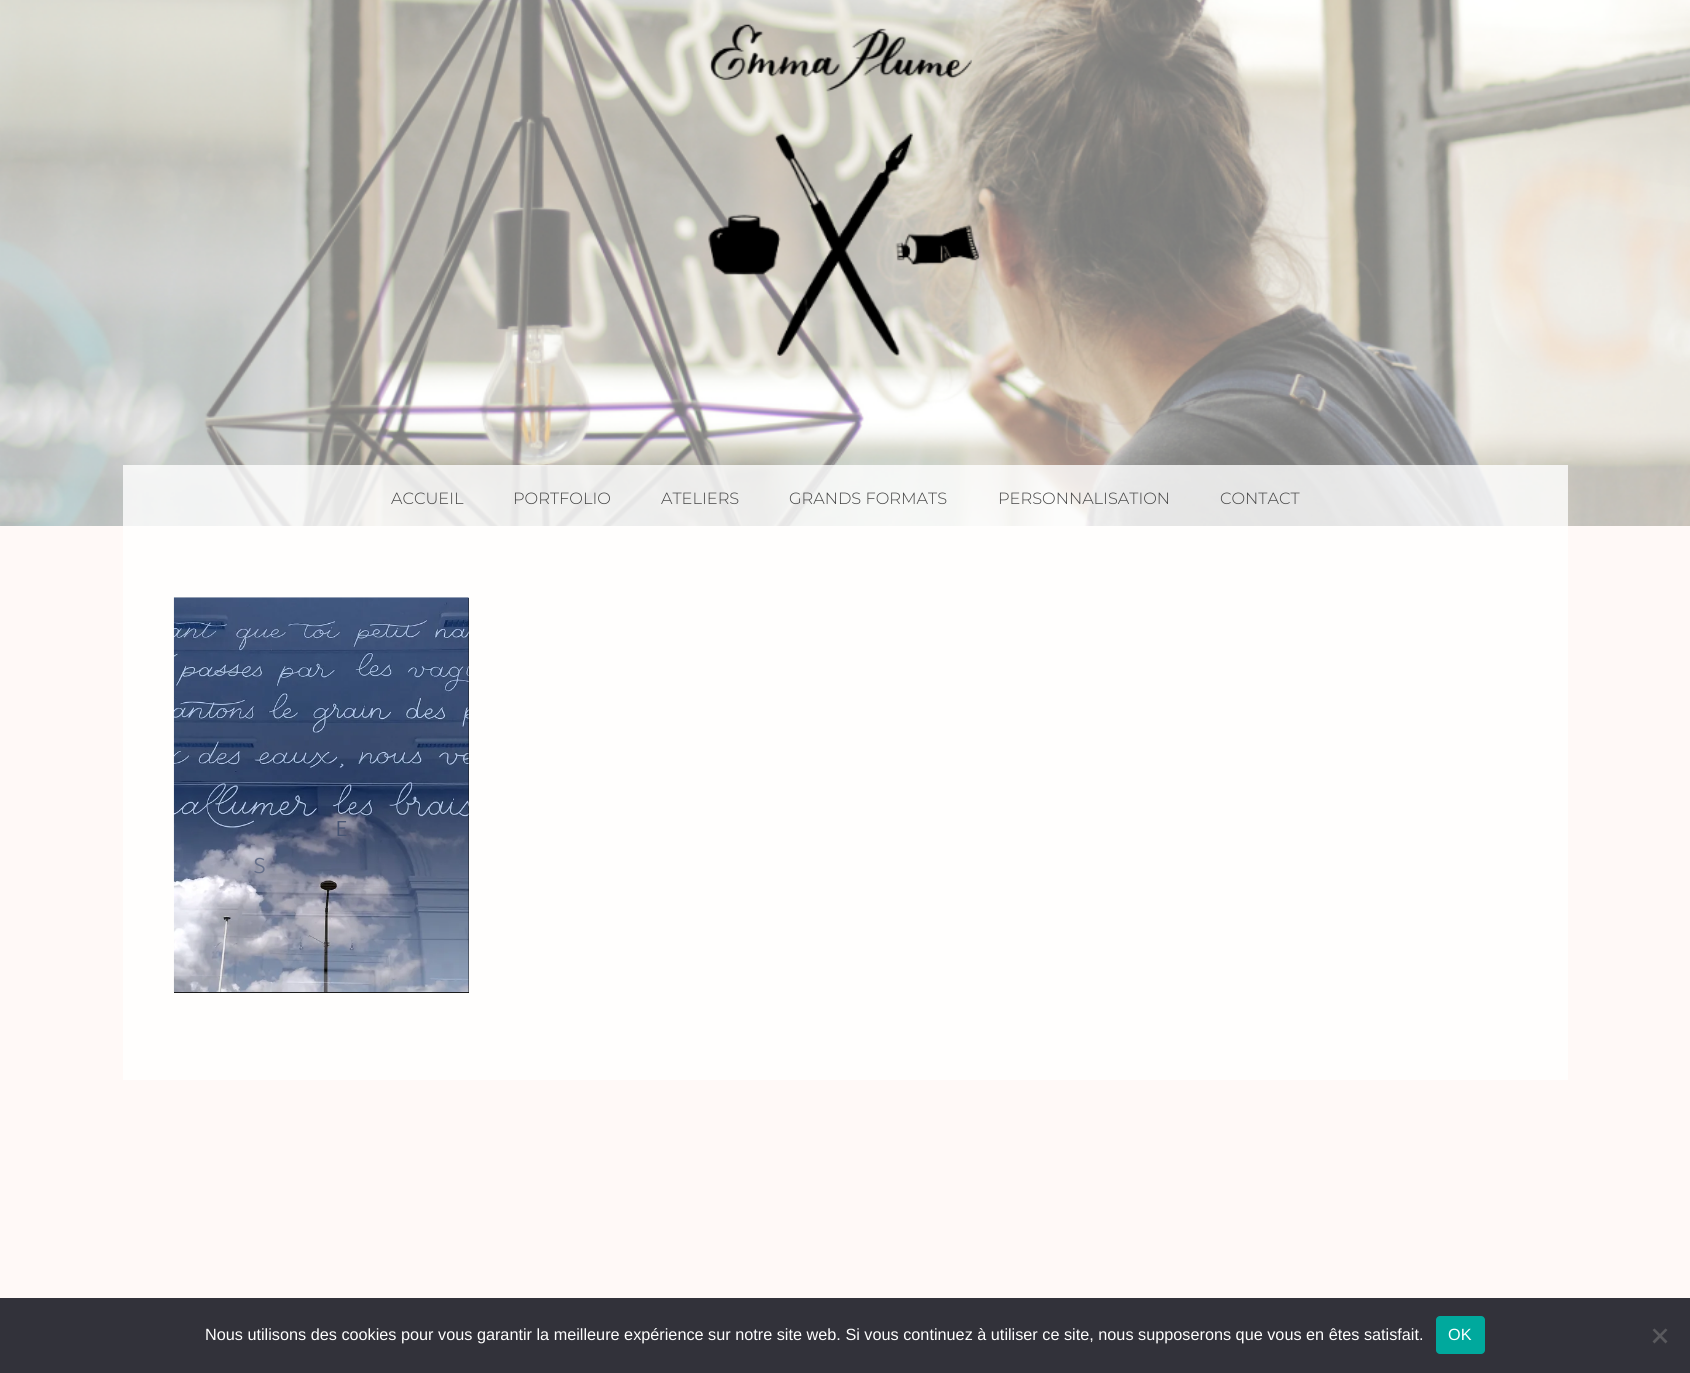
import math
import cairocffi as cairo

surface = cairo.ImageSurface(cairo.FORMAT_RGB24, 1690, 1373)
ctx = cairo.Context(surface)
options = cairo.FontOptions()
options.set_hint_metrics(cairo.HINT_METRICS_OFF)
options.set_hint_style(cairo.HINT_STYLE_NONE)
ctx.set_font_options(options)
ctx.set_miter_limit(4)


def rgb(r, g, b):
    ctx.set_source_rgb(r / 255, g / 255, b / 255)


def face(family, size, italic, bold):
    ctx.select_font_face(family, cairo.FONT_SLANT_ITALIC if italic else cairo.FONT_SLANT_NORMAL, cairo.FONT_WEIGHT_BOLD if bold else cairo.FONT_WEIGHT_NORMAL)
    ctx.set_font_size(size)


def label(x, y, s):
    ctx.move_to(x, y)
    ctx.show_text(s)


def rect(x, y, w, h):
    ctx.rectangle(x, y, w, h)
    ctx.fill()


def rrect(x, y, w, h, r):
    ctx.new_sub_path()
    for i, (u, v) in enumerate([(x + w - r, y + h - r), (x + r, y + h - r), (x + r, y + r), (x + w - r, y + r)]):
        ctx.arc(u, v, r, i * math.pi / 2, (i + 1) * math.pi / 2)
    ctx.close_path()


def image(path, x, y, w, h):
    ctx.save()
    ctx.set_source_surface(cairo.ImageSurface.create_from_png(path), x, y)
    ctx.rectangle(x, y, w, h)
    ctx.fill()
    ctx.restore()


rgb(255, 249, 247)
ctx.paint()
image('image0.png', 0, 0, 1690, 526)
ctx.set_source_rgba(1, 1, 1, 0.8)
rect(123, 465, 1445, 615)
face('Montserrat Light', 16.25, 0, 0)
rgb(68, 68, 68)
label(391, 504, 'ACCUEIL')
label(513, 504, 'PORTFOLIO')
label(661, 504, 'ATELIERS')
label(789, 504, 'GRANDS FORMATS')
label(998, 504, 'PERSONNALISATION')
label(1220, 504, 'CONTACT')
rgb(17, 17, 17)
rect(174, 598, 295, 395)
image('image1.png', 173, 597, 296, 396)
face('Martel Sans Light', 22, 0, 0)
rgb(70, 84, 114)
label(335, 836, 'E')
rgb(101, 111, 137)
label(253, 873, 'S')
rgb(50, 50, 58)
rect(0, 1298, 1690, 75)
face('Liberation Sans', 16.25, 0, 0)
rgb(255, 255, 255)
label(205, 1340, 'Nous utilisons des cookies pour vous garantir la meilleure expérience sur notre site web. Si vous continuez à utiliser ce site, nous supposerons que vous en êtes satisfait.')
rgb(0, 169, 157)
rrect(1436, 1316, 49, 38, 4)
ctx.fill()
rgb(255, 255, 255)
label(1448, 1340, 'OK')
rgb(89, 89, 93)
ctx.new_path()
ctx.move_to(1665.5, 1328.5)
ctx.line_to(1667.5, 1330)
ctx.line_to(1654.5, 1343.5)
ctx.line_to(1652.5, 1341.5)
ctx.close_path()
ctx.fill()
ctx.new_path()
ctx.move_to(1652.5, 1330)
ctx.line_to(1654.5, 1328.5)
ctx.line_to(1667.5, 1341.5)
ctx.line_to(1665.5, 1343.5)
ctx.close_path()
ctx.fill()
surface.write_to_png('render.png')
